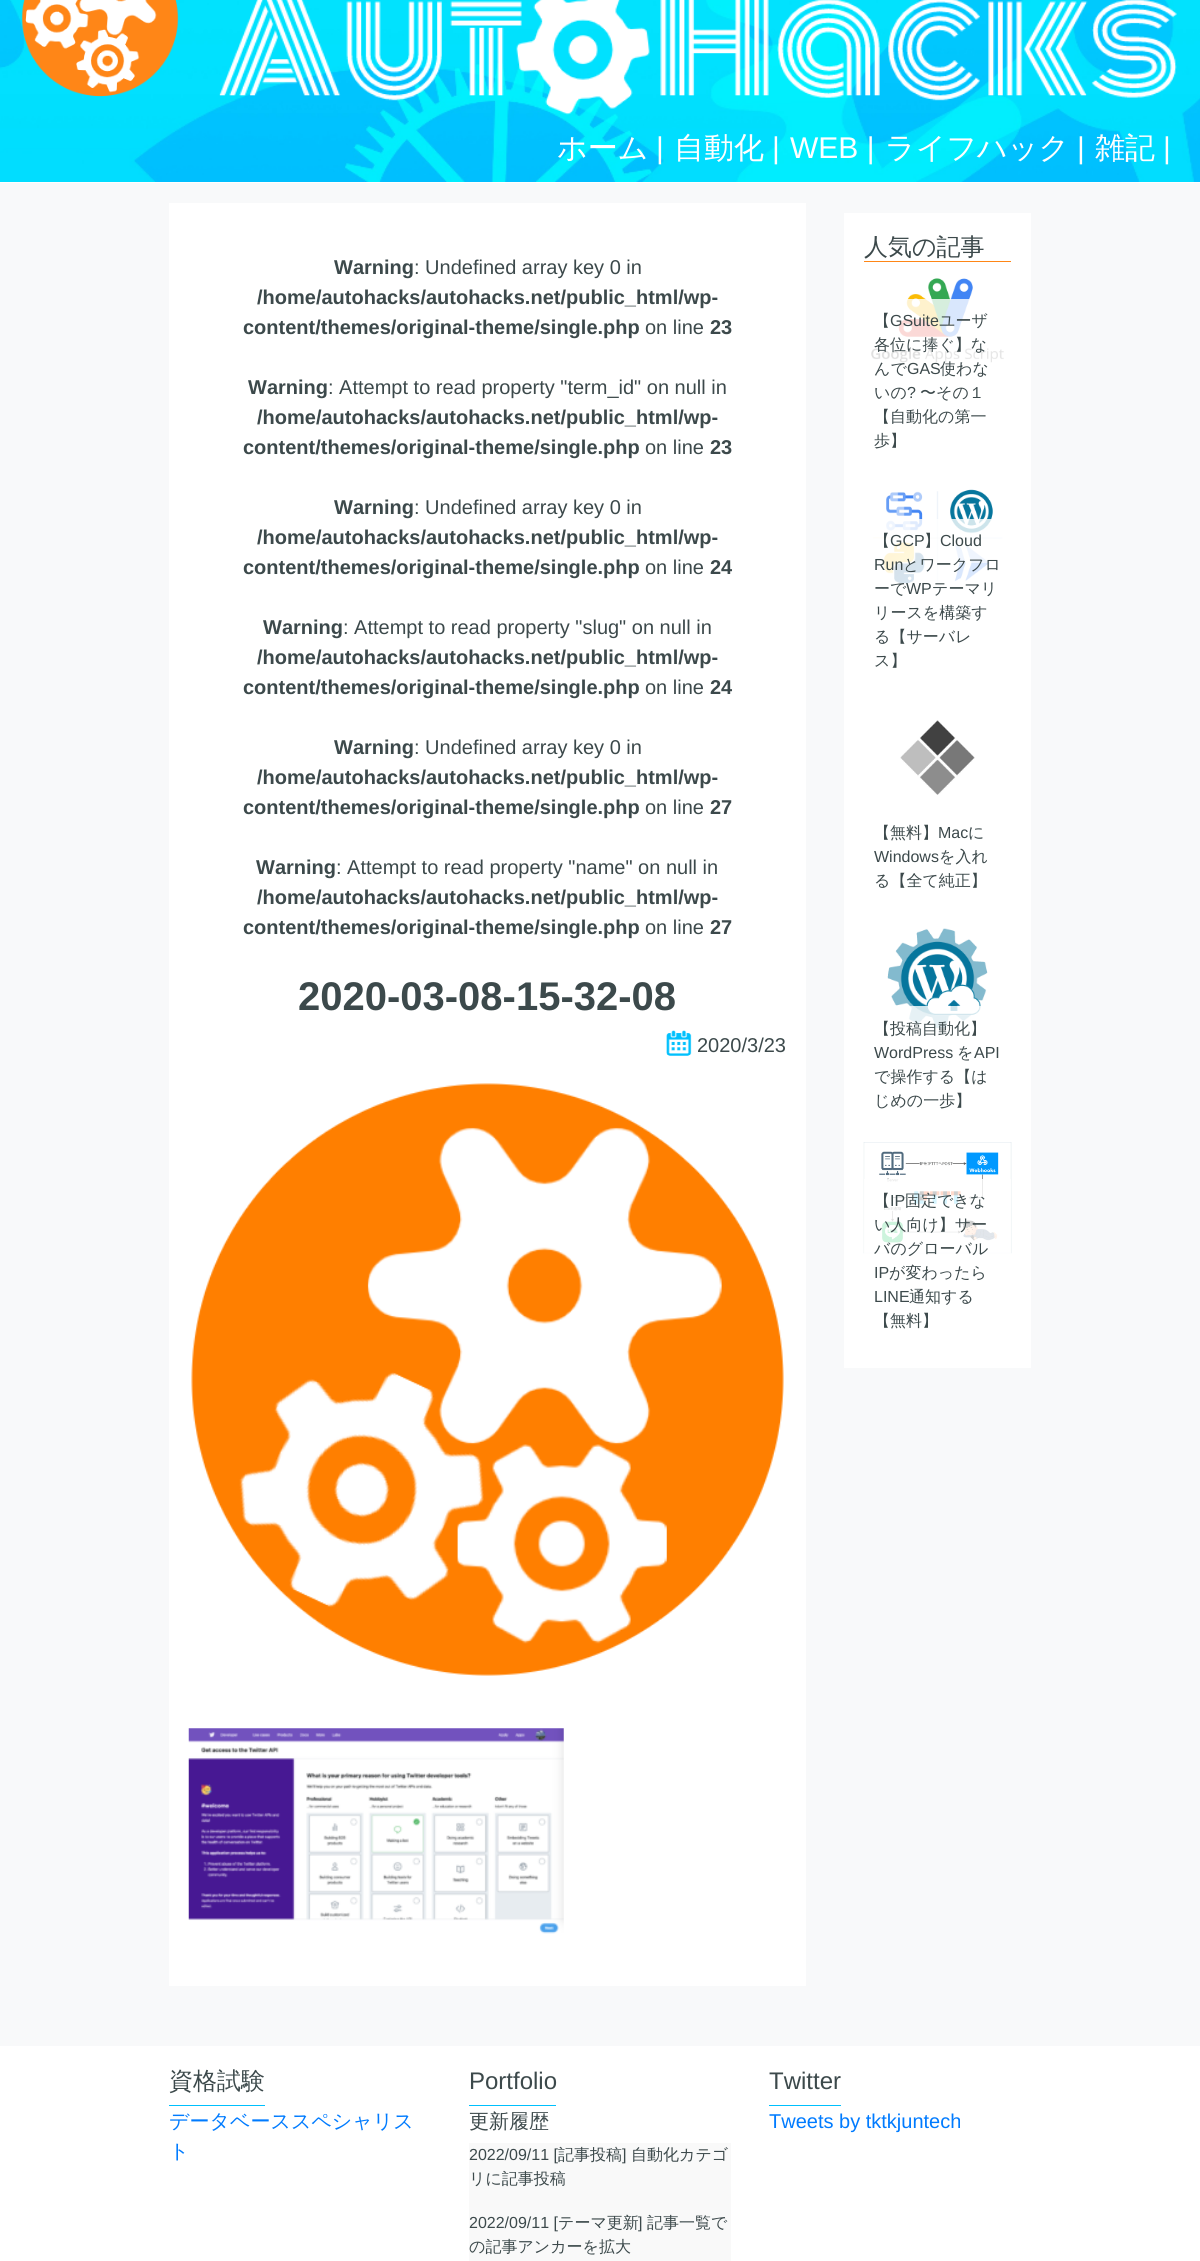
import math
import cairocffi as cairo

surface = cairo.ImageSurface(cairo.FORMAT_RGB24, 1200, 2261)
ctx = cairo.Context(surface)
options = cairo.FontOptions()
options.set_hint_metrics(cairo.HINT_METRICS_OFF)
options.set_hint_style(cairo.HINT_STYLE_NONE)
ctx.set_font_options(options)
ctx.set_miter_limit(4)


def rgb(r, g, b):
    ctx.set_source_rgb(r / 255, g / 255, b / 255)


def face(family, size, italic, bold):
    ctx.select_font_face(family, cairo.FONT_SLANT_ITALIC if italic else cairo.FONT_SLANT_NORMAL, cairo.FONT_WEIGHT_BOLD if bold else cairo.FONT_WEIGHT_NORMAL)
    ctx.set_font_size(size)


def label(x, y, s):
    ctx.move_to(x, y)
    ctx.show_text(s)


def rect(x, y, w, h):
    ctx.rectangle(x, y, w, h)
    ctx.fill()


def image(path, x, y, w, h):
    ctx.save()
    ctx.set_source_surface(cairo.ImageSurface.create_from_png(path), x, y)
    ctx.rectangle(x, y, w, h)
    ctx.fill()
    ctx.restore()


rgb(255, 255, 255)
ctx.paint()
image('image0.png', 0, 0, 1200, 182)
image('image1.png', 21, 0, 158, 97)
image('image2.png', 219, 0, 958, 115)
face('WenQuanYi Zen Hei Medium', 30, 0, 0)
rgb(255, 255, 255)
label(557, 158, 'ホーム')
face('Liberation Sans', 30, 0, 0)
label(656, 158, '|')
face('WenQuanYi Zen Hei Medium', 30, 0, 0)
label(674, 158, '自動化')
face('Liberation Sans', 30, 0, 0)
label(772, 158, '|')
label(790, 158, 'WEB |')
face('WenQuanYi Zen Hei Medium', 30, 0, 0)
label(885, 158, 'ライフハック')
face('Liberation Sans', 30, 0, 0)
label(1077, 158, '|')
face('WenQuanYi Zen Hei Medium', 30, 0, 0)
label(1095, 158, '雑記')
face('Liberation Sans', 30, 0, 0)
label(1163, 158, '|')
rgb(248, 249, 250)
rect(0, 183, 1200, 1863)
rgb(255, 255, 255)
rect(169, 203, 637, 1783)
face('Liberation Sans', 20, 0, 1)
rgb(60, 73, 75)
label(334, 274, 'Warning')
face('Liberation Sans', 20, 0, 0)
label(414, 274, ': Undefined array key 0 in')
face('Liberation Sans', 20, 0, 1)
label(257, 304, '/home/autohacks/autohacks.net/public_html/wp-')
label(243, 334, 'content/themes/original-theme/single.php')
face('Liberation Sans', 20, 0, 0)
label(645, 334, 'on line')
face('Liberation Sans', 20, 0, 1)
label(710, 334, '23')
label(248, 394, 'Warning')
face('Liberation Sans', 20, 0, 0)
label(328, 394, ': Attempt to read property "term_id" on null in')
face('Liberation Sans', 20, 0, 1)
label(257, 424, '/home/autohacks/autohacks.net/public_html/wp-')
label(243, 454, 'content/themes/original-theme/single.php')
face('Liberation Sans', 20, 0, 0)
label(645, 454, 'on line')
face('Liberation Sans', 20, 0, 1)
label(710, 454, '23')
label(334, 514, 'Warning')
face('Liberation Sans', 20, 0, 0)
label(414, 514, ': Undefined array key 0 in')
face('Liberation Sans', 20, 0, 1)
label(257, 544, '/home/autohacks/autohacks.net/public_html/wp-')
label(243, 574, 'content/themes/original-theme/single.php')
face('Liberation Sans', 20, 0, 0)
label(645, 574, 'on line')
face('Liberation Sans', 20, 0, 1)
label(710, 574, '24')
label(263, 634, 'Warning')
face('Liberation Sans', 20, 0, 0)
label(343, 634, ': Attempt to read property "slug" on null in')
face('Liberation Sans', 20, 0, 1)
label(257, 664, '/home/autohacks/autohacks.net/public_html/wp-')
label(243, 694, 'content/themes/original-theme/single.php')
face('Liberation Sans', 20, 0, 0)
label(645, 694, 'on line')
face('Liberation Sans', 20, 0, 1)
label(710, 694, '24')
label(334, 754, 'Warning')
face('Liberation Sans', 20, 0, 0)
label(414, 754, ': Undefined array key 0 in')
face('Liberation Sans', 20, 0, 1)
label(257, 784, '/home/autohacks/autohacks.net/public_html/wp-')
label(243, 814, 'content/themes/original-theme/single.php')
face('Liberation Sans', 20, 0, 0)
label(645, 814, 'on line')
face('Liberation Sans', 20, 0, 1)
label(710, 814, '27')
label(256, 874, 'Warning')
face('Liberation Sans', 20, 0, 0)
label(336, 874, ': Attempt to read property "name" on null in')
face('Liberation Sans', 20, 0, 1)
label(257, 904, '/home/autohacks/autohacks.net/public_html/wp-')
label(243, 934, 'content/themes/original-theme/single.php')
face('Liberation Sans', 20, 0, 0)
label(645, 934, 'on line')
face('Liberation Sans', 20, 0, 1)
label(710, 934, '27')
face('Liberation Sans', 40, 0, 1)
label(298, 1010, '2020-03-08-15-32-08')
image('image3.png', 666, 1030, 26, 26)
face('Liberation Sans', 20, 0, 0)
label(697, 1052, '2020/3/23')
image('image4.png', 191, 1083, 593, 593)
image('image5.png', 188, 1728, 376, 206)
rgb(255, 255, 255)
rect(844, 213, 187, 1155)
rgb(255, 134, 22)
rect(864, 261, 147, 1)
face('WenQuanYi Zen Hei Medium', 24, 0, 0)
rgb(60, 73, 75)
label(864, 255, '人気の記事')
image('image6.png', 871, 278, 133, 85)
ctx.set_source_rgba(1, 1, 1, 0.8)
rect(871, 299, 133, 64)
face('WenQuanYi Zen Hei Medium', 16, 0, 0)
rgb(60, 73, 75)
label(874, 326, '【')
face('Liberation Sans', 16, 0, 0)
label(890, 326, 'GSuite')
face('WenQuanYi Zen Hei Medium', 16, 0, 0)
label(939, 326, 'ユーザ')
label(874, 350, '各位に捧ぐ】な')
label(874, 374, 'んで')
face('Liberation Sans', 16, 0, 0)
label(907, 374, 'GAS')
face('WenQuanYi Zen Hei Medium', 16, 0, 0)
label(940, 374, '使わな')
label(874, 398, 'いの')
face('Liberation Sans', 16, 0, 0)
label(907, 398, '?')
face('WenQuanYi Zen Hei Medium', 16, 0, 0)
label(920, 398, '〜その１')
label(874, 422, '【自動化の第一')
label(874, 446, '歩】')
image('image7.png', 872, 489, 131, 95)
ctx.set_source_rgba(1, 1, 1, 0.8)
rect(872, 519, 131, 65)
rgb(60, 73, 75)
label(874, 546, '【')
face('Liberation Sans', 16, 0, 0)
label(890, 546, 'GCP')
face('WenQuanYi Zen Hei Medium', 16, 0, 0)
label(924, 546, '】')
face('Liberation Sans', 16, 0, 0)
label(940, 546, 'Cloud')
label(874, 570, 'Run')
face('WenQuanYi Zen Hei Medium', 16, 0, 0)
label(903, 570, 'とワークフロ')
label(874, 594, 'ーで')
face('Liberation Sans', 16, 0, 0)
label(906, 594, 'WP')
face('WenQuanYi Zen Hei Medium', 16, 0, 0)
label(932, 594, 'テーマリ')
label(874, 618, 'リースを構築す')
label(874, 642, 'る【サーバレ')
label(874, 666, 'ス】')
image('image8.png', 900, 720, 75, 75)
label(874, 838, '【無料】')
face('Liberation Sans', 16, 0, 0)
label(938, 838, 'Mac')
face('WenQuanYi Zen Hei Medium', 16, 0, 0)
label(968, 838, 'に')
face('Liberation Sans', 16, 0, 0)
label(874, 862, 'Windows')
face('WenQuanYi Zen Hei Medium', 16, 0, 0)
label(939, 862, 'を入れ')
label(874, 886, 'る【全て純正】')
image('image9.png', 887, 928, 101, 100)
ctx.set_source_rgba(1, 1, 1, 0.8)
rect(908, 1006, 73, 22)
rgb(60, 73, 75)
label(874, 1034, '【投稿自動化】')
face('Liberation Sans', 16, 0, 0)
label(874, 1058, 'WordPress')
face('WenQuanYi Zen Hei Medium', 16, 0, 0)
label(957, 1058, 'を')
face('Liberation Sans', 16, 0, 0)
label(974, 1058, 'API')
face('WenQuanYi Zen Hei Medium', 16, 0, 0)
label(874, 1082, 'で操作する【は')
label(874, 1106, 'じめの一歩】')
image('image10.png', 863, 1142, 149, 112)
ctx.set_source_rgba(1, 1, 1, 0.8)
rect(864, 1179, 147, 75)
rgb(60, 73, 75)
label(874, 1206, '【')
face('Liberation Sans', 16, 0, 0)
label(890, 1206, 'IP')
face('WenQuanYi Zen Hei Medium', 16, 0, 0)
label(905, 1206, '固定できな')
label(874, 1230, 'い人向け】サー')
label(874, 1254, 'バのグローバル')
face('Liberation Sans', 16, 0, 0)
label(874, 1278, 'IP')
face('WenQuanYi Zen Hei Medium', 16, 0, 0)
label(889, 1278, 'が変わったら')
face('Liberation Sans', 16, 0, 0)
label(874, 1302, 'LINE')
face('WenQuanYi Zen Hei Medium', 16, 0, 0)
label(909, 1302, '通知する')
label(874, 1326, '【無料】')
rgb(0, 192, 253)
rect(169, 2105, 96, 1)
face('WenQuanYi Zen Hei Medium', 24, 0, 0)
rgb(60, 73, 75)
label(169, 2089, '資格試験')
face('WenQuanYi Zen Hei Medium', 20, 0, 0)
rgb(0, 123, 255)
label(169, 2128, 'データベーススペシャリス')
label(169, 2158, 'ト')
rgb(0, 192, 253)
rect(469, 2105, 87, 1)
face('Liberation Sans', 24, 0, 0)
rgb(60, 73, 75)
label(469, 2089, 'Portfolio')
face('WenQuanYi Zen Hei Medium', 20, 0, 0)
label(469, 2128, '更新履歴')
rgb(249, 249, 249)
rect(469, 2143, 262, 118)
face('Liberation Sans', 16, 0, 0)
rgb(60, 73, 75)
label(469, 2160, '2022/09/11 [')
face('WenQuanYi Zen Hei Medium', 16, 0, 0)
label(558, 2160, '記事投稿')
face('Liberation Sans', 16, 0, 0)
label(622, 2160, ']')
face('WenQuanYi Zen Hei Medium', 16, 0, 0)
label(631, 2160, '自動化カテゴ')
label(469, 2184, 'リに記事投稿')
face('Liberation Sans', 16, 0, 0)
label(469, 2228, '2022/09/11 [')
face('WenQuanYi Zen Hei Medium', 16, 0, 0)
label(558, 2228, 'テーマ更新')
face('Liberation Sans', 16, 0, 0)
label(638, 2228, ']')
face('WenQuanYi Zen Hei Medium', 16, 0, 0)
label(647, 2228, '記事一覧で')
label(469, 2252, 'の記事アンカーを拡大')
rgb(0, 192, 253)
rect(769, 2105, 72, 1)
face('Liberation Sans', 24, 0, 0)
rgb(60, 73, 75)
label(769, 2089, 'Twitter')
face('Liberation Sans', 20, 0, 0)
rgb(0, 123, 255)
label(769, 2128, 'Tweets by tktkjuntech')
surface.write_to_png('render.png')
